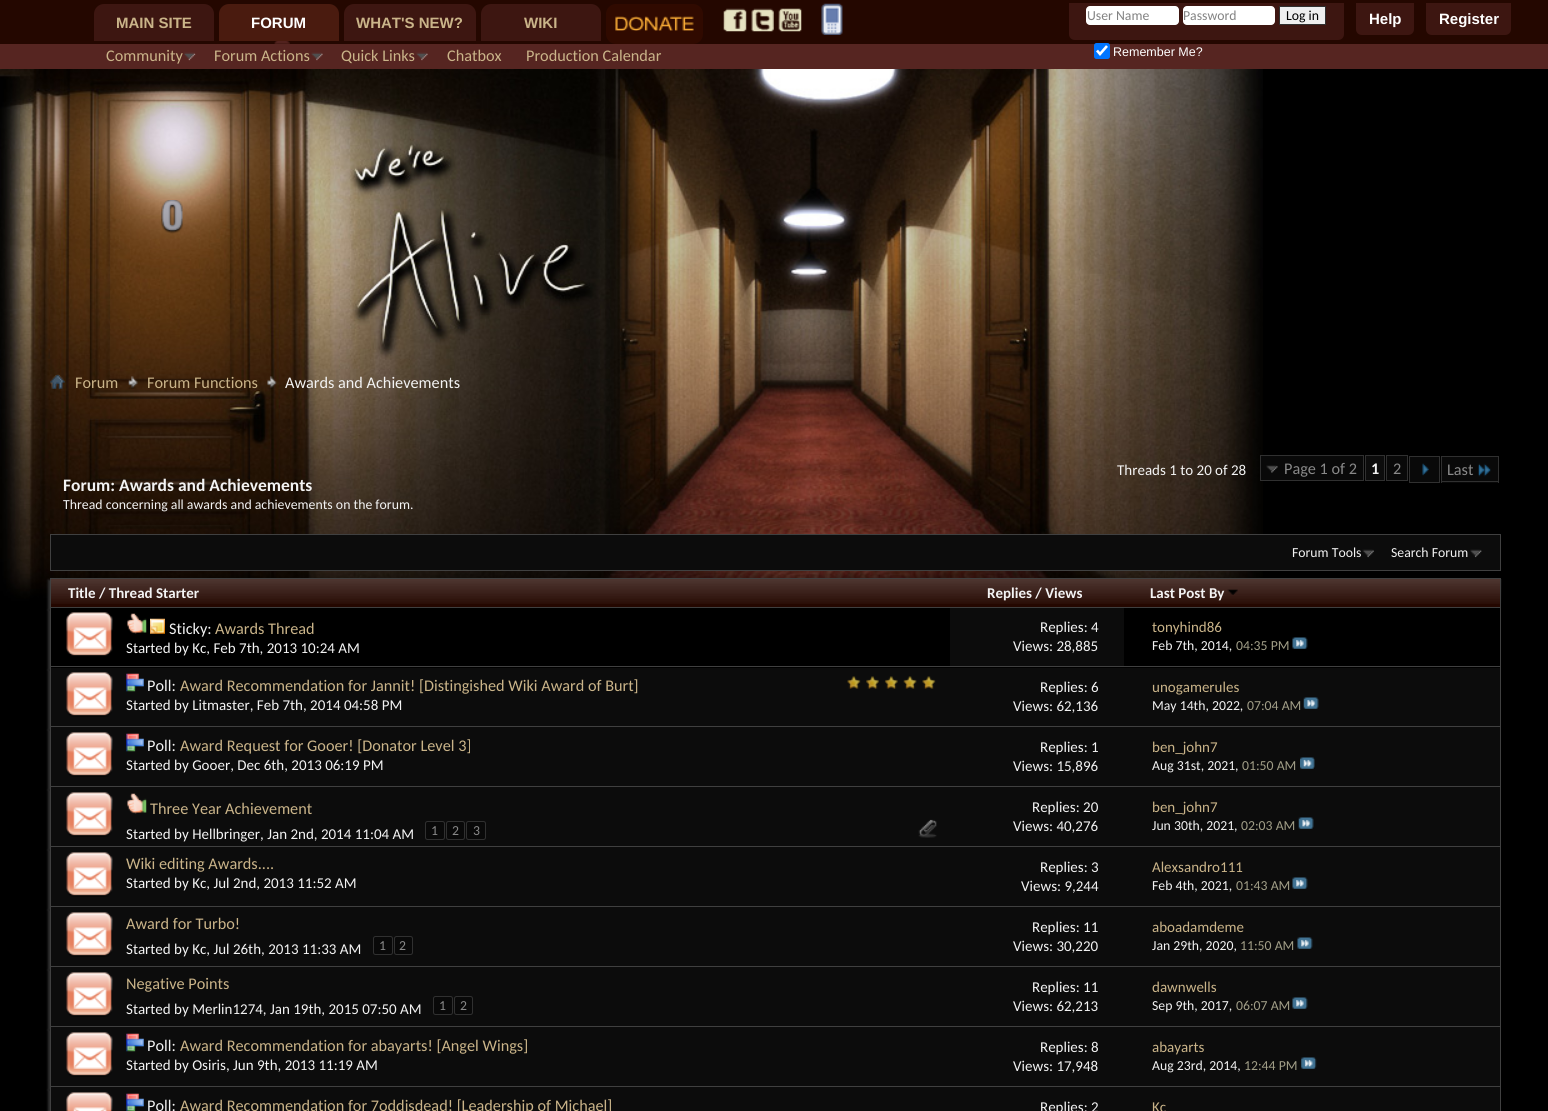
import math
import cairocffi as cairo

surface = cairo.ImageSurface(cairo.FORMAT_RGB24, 1548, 1111)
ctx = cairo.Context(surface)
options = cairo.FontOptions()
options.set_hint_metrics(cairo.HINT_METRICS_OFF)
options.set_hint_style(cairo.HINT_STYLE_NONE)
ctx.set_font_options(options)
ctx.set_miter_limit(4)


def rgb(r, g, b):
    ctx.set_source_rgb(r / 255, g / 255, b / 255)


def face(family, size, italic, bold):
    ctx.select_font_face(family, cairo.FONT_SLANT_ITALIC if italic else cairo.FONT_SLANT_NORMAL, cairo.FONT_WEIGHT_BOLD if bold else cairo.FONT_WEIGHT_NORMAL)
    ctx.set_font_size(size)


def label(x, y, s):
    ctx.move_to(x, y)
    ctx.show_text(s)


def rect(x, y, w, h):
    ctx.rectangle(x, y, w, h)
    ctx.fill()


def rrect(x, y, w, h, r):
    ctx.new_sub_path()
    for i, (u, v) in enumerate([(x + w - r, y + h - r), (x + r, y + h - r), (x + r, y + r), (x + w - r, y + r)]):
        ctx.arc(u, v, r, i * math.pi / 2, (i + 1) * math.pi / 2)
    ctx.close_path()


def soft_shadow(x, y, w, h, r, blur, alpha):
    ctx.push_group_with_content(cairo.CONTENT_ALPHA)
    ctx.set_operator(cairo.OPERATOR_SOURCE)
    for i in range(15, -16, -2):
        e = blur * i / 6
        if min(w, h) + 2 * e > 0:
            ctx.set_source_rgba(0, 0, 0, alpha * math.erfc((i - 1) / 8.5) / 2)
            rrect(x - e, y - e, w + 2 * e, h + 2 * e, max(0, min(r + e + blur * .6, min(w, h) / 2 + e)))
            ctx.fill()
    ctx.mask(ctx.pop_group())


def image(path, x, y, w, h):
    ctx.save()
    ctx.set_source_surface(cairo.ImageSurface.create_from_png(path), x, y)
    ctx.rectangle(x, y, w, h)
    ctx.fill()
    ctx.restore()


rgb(0, 0, 0)
ctx.paint()
rgb(36, 7, 0)
rect(0, 0, 1548, 44)
rgb(61, 22, 17)
ctx.new_path()
ctx.move_to(104, 4)
ctx.line_to(204, 4)
ctx.curve_to(209.5, 4, 214, 8.5, 214, 14)
ctx.line_to(214, 41)
ctx.line_to(94, 41)
ctx.line_to(94, 14)
ctx.curve_to(94, 8.5, 98.5, 4, 104, 4)
ctx.close_path()
ctx.fill()
face('Liberation Sans', 15, 0, 1)
rgb(202, 180, 137)
label(116, 28, 'MAIN SITE')
image('image0.png', 274, 41, 16, 3)
rgb(74, 27, 15)
ctx.new_path()
ctx.move_to(229, 4)
ctx.line_to(329, 4)
ctx.curve_to(334.5, 4, 339, 8.5, 339, 14)
ctx.line_to(339, 41)
ctx.line_to(219, 41)
ctx.line_to(219, 14)
ctx.curve_to(219, 8.5, 223.5, 4, 229, 4)
ctx.close_path()
ctx.fill()
rgb(255, 255, 255)
label(251, 28, 'FORUM')
rgb(61, 22, 17)
ctx.new_path()
ctx.move_to(354, 4)
ctx.line_to(466, 4)
ctx.curve_to(471.5, 4, 476, 8.5, 476, 14)
ctx.line_to(476, 41)
ctx.line_to(344, 41)
ctx.line_to(344, 14)
ctx.curve_to(344, 8.5, 348.5, 4, 354, 4)
ctx.close_path()
ctx.fill()
rgb(202, 180, 137)
label(356, 28, 'WHAT\'S NEW?')
rgb(61, 22, 17)
ctx.new_path()
ctx.move_to(491, 4)
ctx.line_to(591, 4)
ctx.curve_to(596.5, 4, 601, 8.5, 601, 14)
ctx.line_to(601, 41)
ctx.line_to(481, 41)
ctx.line_to(481, 14)
ctx.curve_to(481, 8.5, 485.5, 4, 491, 4)
ctx.close_path()
ctx.fill()
rgb(202, 180, 137)
label(524, 28, 'WIKI')
rgb(48, 10, 0)
rrect(606, 4, 97, 40, 10)
ctx.fill()
image('image1.png', 615, 16, 79, 15)
image('image2.png', 723, 8, 24, 24)
image('image3.png', 751, 8, 23, 24)
image('image4.png', 778, 8, 24, 24)
image('image5.png', 821, 3, 22, 32)
rgb(86, 37, 33)
rect(0, 44, 1548, 25)
face('Carlito', 16.25, 0, 0)
rgb(202, 180, 137)
label(106, 61, 'Community')
image('image6.png', 184, 52, 12, 9)
label(214, 61, 'Forum Actions')
image('image7.png', 311, 52, 12, 9)
label(341, 61, 'Quick Links')
image('image7.png', 416, 52, 12, 9)
label(447, 61, 'Chatbox')
label(526, 61, 'Production Calendar')
rgb(61, 22, 17)
ctx.new_path()
ctx.move_to(1069, 3)
ctx.line_to(1344, 3)
ctx.line_to(1344, 34)
ctx.curve_to(1344, 37.5, 1341.5, 40, 1338, 40)
ctx.line_to(1075, 40)
ctx.curve_to(1071.5, 40, 1069, 37.5, 1069, 34)
ctx.close_path()
ctx.fill()
rgb(255, 255, 255)
rrect(1086, 6, 93, 19, 4)
ctx.fill()
face('Carlito', 13.75, 0, 0)
rgb(130, 130, 130)
label(1087, 20, 'User Name')
rgb(255, 255, 255)
rrect(1183, 6, 92, 19, 4)
ctx.fill()
rgb(130, 130, 130)
label(1183, 20, 'Password')
rgb(239, 239, 239)
ctx.rectangle(1279.5, 6.5, 46, 18)
ctx.fill_preserve()
rgb(48, 48, 48)
ctx.set_line_width(1)
ctx.stroke()
rgb(0, 0, 0)
label(1286, 20, 'Log in')
rgb(0, 117, 255)
rrect(1094, 43, 16, 16, 2.5)
ctx.fill()
ctx.new_path()
ctx.move_to(1097, 50.5)
ctx.line_to(1100, 54)
ctx.line_to(1107, 46)
rgb(255, 255, 255)
ctx.set_line_width(2.6)
ctx.stroke()
face('Liberation Sans', 12.5, 0, 0)
label(1113, 56, 'Remember Me?')
rgb(61, 22, 17)
ctx.new_path()
ctx.move_to(1356, 3)
ctx.line_to(1414, 3)
ctx.line_to(1414, 29)
ctx.curve_to(1414, 32.5, 1411.5, 35, 1408, 35)
ctx.line_to(1362, 35)
ctx.curve_to(1358.5, 35, 1356, 32.5, 1356, 29)
ctx.close_path()
ctx.fill()
face('Liberation Sans', 15, 0, 1)
rgb(255, 255, 255)
label(1369, 24, 'Help')
rgb(61, 22, 17)
ctx.new_path()
ctx.move_to(1426, 3)
ctx.line_to(1511, 3)
ctx.line_to(1511, 29)
ctx.curve_to(1511, 32.5, 1508.5, 35, 1505, 35)
ctx.line_to(1432, 35)
ctx.curve_to(1428.5, 35, 1426, 32.5, 1426, 29)
ctx.close_path()
ctx.fill()
rgb(255, 255, 255)
label(1439, 24, 'Register')
image('image34.png', 0, 69, 1263, 532)
image('image8.png', 161, 200, 22, 34)
image('image9.png', 50, 374, 15, 15)
image('image10.png', 128, 376, 10, 13)
face('Carlito', 16.25, 0, 0)
rgb(202, 180, 137)
label(75, 388, 'Forum')
image('image11.png', 267, 376, 10, 13)
label(147, 388, 'Forum Functions')
rgb(243, 243, 243)
label(285, 388, 'Awards and Achievements')
face('Carlito', 15, 0, 0)
label(1117, 475, 'Threads 1 to 20 of 28')
rgb(9, 9, 9)
rect(1261, 456, 102, 24)
image('image12.png', 1266, 465, 12, 8)
ctx.rectangle(1260.5, 455.5, 103, 25)
rgb(48, 48, 48)
ctx.set_line_width(1)
ctx.stroke()
face('Carlito', 16.25, 0, 0)
rgb(137, 137, 137)
label(1284, 474, 'Page 1 of 2')
rgb(12, 12, 12)
ctx.rectangle(1365.5, 455.5, 19, 25)
ctx.fill_preserve()
rgb(48, 48, 48)
ctx.stroke()
face('Carlito', 16.25, 0, 1)
rgb(243, 243, 243)
label(1371, 474, '1')
rgb(9, 9, 9)
ctx.rectangle(1386.5, 455.5, 21, 25)
ctx.fill_preserve()
rgb(48, 48, 48)
ctx.stroke()
face('Carlito', 16.25, 0, 0)
rgb(137, 137, 137)
label(1393, 474, '2')
rgb(9, 9, 9)
ctx.rectangle(1409.5, 456.5, 30, 26)
ctx.fill_preserve()
rgb(48, 48, 48)
ctx.stroke()
image('image13.png', 1422, 463, 7, 13)
rgb(9, 9, 9)
rect(1442, 457, 56, 26)
rgb(137, 137, 137)
label(1447, 475, 'Last')
rgb(48, 48, 48)
rect(1441, 456, 58, 1)
rect(1441, 481, 33, 1)
rect(1441, 456, 1, 27)
rect(1498, 456, 1, 27)
rect(1474, 481, 25, 1)
image('image14.png', 1478, 463, 13, 14)
face('Carlito', 17.5, 0, 1)
rgb(243, 243, 243)
label(63, 491, 'Forum: Awards and Achievements')
face('Carlito', 13.8, 0, 0)
label(63, 509, 'Thread concerning all awards and achievements on the forum.')
rgb(12, 12, 12)
ctx.rectangle(50.5, 534.5, 1450, 36)
ctx.fill_preserve()
rgb(64, 64, 64)
ctx.stroke()
image('image15.png', 1362, 549, 12, 9)
face('Carlito', 13.75, 0, 0)
rgb(243, 243, 243)
label(1292, 557, 'Forum Tools')
image('image16.png', 1470, 549, 12, 9)
label(1391, 557, 'Search Forum')
rgb(48, 48, 48)
soft_shadow(48, 580, 1451, 30, 0, 1, 1)
rgb(36, 7, 0)
rect(51, 579, 1449, 28)
image('image17.png', 51, 579, 1451, 25)
ctx.rectangle(50.5, 578.5, 1450, 29)
rgb(64, 64, 64)
ctx.stroke()
face('Carlito', 15, 0, 1)
rgb(243, 243, 243)
label(68, 598, 'Title / Thread Starter')
label(987, 598, 'Replies / Views')
label(1150, 598, 'Last Post By')
image('image18.png', 1227, 589, 11, 6)
rgb(48, 48, 48)
soft_shadow(48, 610, 1448, 60, 0, 1, 1)
rgb(0, 0, 0)
rect(51, 608, 1449, 60)
rgb(64, 64, 64)
rect(1500, 608, 1, 503)
rect(50, 666, 1451, 1)
rect(50, 608, 1, 60)
image('image19.png', 66, 612, 47, 44)
image('image20.png', 127, 613, 20, 21)
image('image21.png', 150, 618, 15, 16)
face('Carlito', 16.25, 0, 0)
rgb(243, 243, 243)
label(169, 634, 'Sticky:')
rgb(202, 180, 137)
label(215, 634, 'Awards Thread')
face('Carlito', 15, 0, 0)
rgb(243, 243, 243)
label(126, 653, 'Started by Kc, Feb 7th, 2013 10:24 AM')
rgb(12, 12, 12)
rect(950, 608, 174, 58)
rgb(243, 243, 243)
label(1040, 632, 'Replies: 4')
label(1013, 651, 'Views: 28,885')
rgb(202, 180, 137)
label(1152, 632, 'tonyhind86')
face('Carlito', 13.75, 0, 0)
rgb(243, 243, 243)
label(1152, 650, 'Feb 7th, 2014,')
rgb(161, 158, 135)
label(1236, 650, '04:35 PM')
image('image22.png', 1292, 637, 16, 12)
rgb(48, 48, 48)
soft_shadow(48, 670, 1448, 60, 0, 1, 1)
rgb(12, 12, 12)
rect(51, 668, 1449, 60)
rgb(64, 64, 64)
rect(50, 726, 1451, 1)
rect(50, 668, 1, 60)
image('image23.png', 66, 672, 47, 45)
image('image24.png', 847, 676, 89, 13)
image('image25.png', 126, 673, 18, 19)
face('Carlito', 16.25, 0, 0)
rgb(243, 243, 243)
label(147, 691, 'Poll:')
rgb(202, 180, 137)
label(180, 691, 'Award Recommendation for Jannit! [Distingished Wiki Award of Burt]')
face('Carlito', 15, 0, 0)
rgb(243, 243, 243)
label(126, 710, 'Started by Litmaster, Feb 7th, 2014 04:58 PM')
label(1040, 692, 'Replies: 6')
label(1013, 711, 'Views: 62,136')
rgb(202, 180, 137)
label(1152, 692, 'unogamerules')
face('Carlito', 13.75, 0, 0)
rgb(243, 243, 243)
label(1152, 710, 'May 14th, 2022,')
rgb(161, 158, 135)
label(1247, 710, '07:04 AM')
image('image26.png', 1303, 697, 16, 12)
rgb(48, 48, 48)
soft_shadow(48, 730, 1448, 60, 0, 1, 1)
rgb(12, 12, 12)
rect(51, 728, 1449, 60)
rgb(64, 64, 64)
rect(50, 786, 1451, 1)
rect(50, 728, 1, 60)
image('image23.png', 66, 732, 47, 45)
image('image25.png', 126, 733, 18, 19)
face('Carlito', 16.25, 0, 0)
rgb(243, 243, 243)
label(147, 751, 'Poll:')
rgb(202, 180, 137)
label(180, 751, 'Award Request for Gooer! [Donator Level 3]')
face('Carlito', 15, 0, 0)
rgb(243, 243, 243)
label(126, 770, 'Started by Gooer, Dec 6th, 2013 06:19 PM')
label(1040, 752, 'Replies: 1')
label(1013, 771, 'Views: 15,896')
rgb(202, 180, 137)
label(1152, 752, 'ben_john7')
face('Carlito', 13.75, 0, 0)
rgb(243, 243, 243)
label(1152, 770, 'Aug 31st, 2021,')
rgb(161, 158, 135)
label(1242, 770, '01:50 AM')
image('image27.png', 1300, 757, 15, 12)
rgb(48, 48, 48)
soft_shadow(48, 790, 1448, 60, 0, 1, 1)
rgb(12, 12, 12)
rect(51, 788, 1449, 60)
rgb(64, 64, 64)
rect(50, 846, 1451, 1)
rect(50, 788, 1, 60)
image('image23.png', 66, 792, 47, 45)
image('image28.png', 127, 793, 20, 21)
face('Carlito', 16.25, 0, 0)
rgb(202, 180, 137)
label(150, 814, 'Three Year Achievement')
face('Carlito', 15, 0, 0)
rgb(243, 243, 243)
label(126, 839, 'Started by Hellbringer, Jan 2nd, 2014 11:04 AM')
rgb(9, 9, 9)
rrect(425.5, 821.5, 19, 18, 2)
ctx.fill_preserve()
rgb(48, 48, 48)
ctx.stroke()
face('Carlito', 13.75, 0, 0)
rgb(137, 137, 137)
label(431, 835, '1')
rgb(9, 9, 9)
rrect(446.5, 821.5, 18, 18, 2)
ctx.fill_preserve()
rgb(48, 48, 48)
ctx.stroke()
rgb(137, 137, 137)
label(452, 835, '2')
rgb(9, 9, 9)
rrect(466.5, 821.5, 19, 18, 2)
ctx.fill_preserve()
rgb(48, 48, 48)
ctx.stroke()
rgb(137, 137, 137)
label(473, 835, '3')
image('image29.png', 918, 819, 19, 19)
face('Carlito', 15, 0, 0)
rgb(243, 243, 243)
label(1032, 812, 'Replies: 20')
label(1013, 831, 'Views: 40,276')
rgb(202, 180, 137)
label(1152, 812, 'ben_john7')
face('Carlito', 13.75, 0, 0)
rgb(243, 243, 243)
label(1152, 830, 'Jun 30th, 2021,')
rgb(161, 158, 135)
label(1241, 830, '02:03 AM')
image('image26.png', 1298, 817, 16, 12)
rgb(48, 48, 48)
soft_shadow(48, 850, 1448, 60, 0, 1, 1)
rgb(12, 12, 12)
rect(51, 848, 1449, 60)
rgb(64, 64, 64)
rect(50, 906, 1451, 1)
rect(50, 848, 1, 60)
image('image23.png', 66, 852, 47, 45)
face('Carlito', 16.25, 0, 0)
rgb(202, 180, 137)
label(126, 869, 'Wiki editing Awards....')
face('Carlito', 15, 0, 0)
rgb(243, 243, 243)
label(126, 888, 'Started by Kc, Jul 2nd, 2013 11:52 AM')
label(1040, 872, 'Replies: 3')
label(1021, 891, 'Views: 9,244')
rgb(202, 180, 137)
label(1152, 872, 'Alexsandro111')
face('Carlito', 13.75, 0, 0)
rgb(243, 243, 243)
label(1152, 890, 'Feb 4th, 2021,')
rgb(161, 158, 135)
label(1236, 890, '01:43 AM')
image('image30.png', 1292, 877, 16, 12)
rgb(48, 48, 48)
soft_shadow(48, 910, 1448, 60, 0, 1, 1)
rgb(12, 12, 12)
rect(51, 908, 1449, 60)
rgb(64, 64, 64)
rect(50, 966, 1451, 1)
rect(50, 908, 1, 60)
image('image23.png', 66, 912, 47, 45)
face('Carlito', 16.25, 0, 0)
rgb(202, 180, 137)
label(126, 929, 'Award for Turbo!')
face('Carlito', 15, 0, 0)
rgb(243, 243, 243)
label(126, 954, 'Started by Kc, Jul 26th, 2013 11:33 AM')
rgb(9, 9, 9)
rrect(373.5, 936.5, 19, 18, 2)
ctx.fill_preserve()
rgb(48, 48, 48)
ctx.stroke()
face('Carlito', 13.75, 0, 0)
rgb(137, 137, 137)
label(379, 950, '1')
rgb(9, 9, 9)
rrect(394.5, 936.5, 18, 18, 2)
ctx.fill_preserve()
rgb(48, 48, 48)
ctx.stroke()
rgb(137, 137, 137)
label(399, 950, '2')
face('Carlito', 15, 0, 0)
rgb(243, 243, 243)
label(1032, 932, 'Replies: 11')
label(1013, 951, 'Views: 30,220')
rgb(202, 180, 137)
label(1152, 932, 'aboadamdeme')
face('Carlito', 13.75, 0, 0)
rgb(243, 243, 243)
label(1152, 950, 'Jan 29th, 2020,')
rgb(161, 158, 135)
label(1240, 950, '11:50 AM')
image('image30.png', 1297, 937, 16, 12)
rgb(48, 48, 48)
soft_shadow(48, 970, 1448, 60, 0, 1, 1)
rgb(12, 12, 12)
rect(51, 968, 1449, 60)
rgb(64, 64, 64)
rect(50, 1026, 1451, 1)
rect(50, 968, 1, 60)
image('image23.png', 66, 972, 47, 45)
face('Carlito', 16.25, 0, 0)
rgb(202, 180, 137)
label(126, 989, 'Negative Points')
face('Carlito', 15, 0, 0)
rgb(243, 243, 243)
label(126, 1014, 'Started by Merlin1274, Jan 19th, 2015 07:50 AM')
rgb(9, 9, 9)
rrect(433.5, 996.5, 19, 18, 2)
ctx.fill_preserve()
rgb(48, 48, 48)
ctx.stroke()
face('Carlito', 13.75, 0, 0)
rgb(137, 137, 137)
label(439, 1010, '1')
rgb(9, 9, 9)
rrect(454.5, 996.5, 18, 18, 2)
ctx.fill_preserve()
rgb(48, 48, 48)
ctx.stroke()
rgb(137, 137, 137)
label(460, 1010, '2')
face('Carlito', 15, 0, 0)
rgb(243, 243, 243)
label(1032, 992, 'Replies: 11')
label(1013, 1011, 'Views: 62,213')
rgb(202, 180, 137)
label(1152, 992, 'dawnwells')
face('Carlito', 13.75, 0, 0)
rgb(243, 243, 243)
label(1152, 1010, 'Sep 9th, 2017,')
rgb(161, 158, 135)
label(1236, 1010, '06:07 AM')
image('image30.png', 1292, 997, 16, 12)
rgb(48, 48, 48)
soft_shadow(48, 1030, 1448, 60, 0, 1, 1)
rgb(12, 12, 12)
rect(51, 1028, 1449, 60)
rgb(64, 64, 64)
rect(50, 1086, 1451, 1)
rect(50, 1028, 1, 60)
image('image23.png', 66, 1032, 47, 45)
image('image25.png', 126, 1033, 18, 19)
face('Carlito', 16.25, 0, 0)
rgb(243, 243, 243)
label(147, 1051, 'Poll:')
rgb(202, 180, 137)
label(180, 1051, 'Award Recommendation for abayarts! [Angel Wings]')
face('Carlito', 15, 0, 0)
rgb(243, 243, 243)
label(126, 1070, 'Started by Osiris, Jun 9th, 2013 11:19 AM')
label(1040, 1052, 'Replies: 8')
label(1013, 1071, 'Views: 17,948')
rgb(202, 180, 137)
label(1152, 1052, 'abayarts')
face('Carlito', 13.75, 0, 0)
rgb(243, 243, 243)
label(1152, 1070, 'Aug 23rd, 2014,')
rgb(161, 158, 135)
label(1244, 1070, '12:44 PM')
image('image31.png', 1301, 1057, 16, 12)
rgb(48, 48, 48)
soft_shadow(48, 1090, 1448, 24, 0, 1, 1)
rgb(12, 12, 12)
rect(51, 1088, 1449, 23)
rgb(64, 64, 64)
rect(50, 1088, 1, 23)
image('image32.png', 66, 1092, 47, 19)
image('image33.png', 126, 1093, 18, 18)
face('Carlito', 16.25, 0, 0)
rgb(243, 243, 243)
label(147, 1111, 'Poll:')
rgb(202, 180, 137)
label(180, 1111, 'Award Recommendation for 7oddisdead! [Leadership of Michael]')
face('Carlito', 15, 0, 0)
rgb(243, 243, 243)
label(1040, 1112, 'Replies: 2')
rgb(202, 180, 137)
label(1152, 1112, 'Kc')
surface.write_to_png('render.png')
